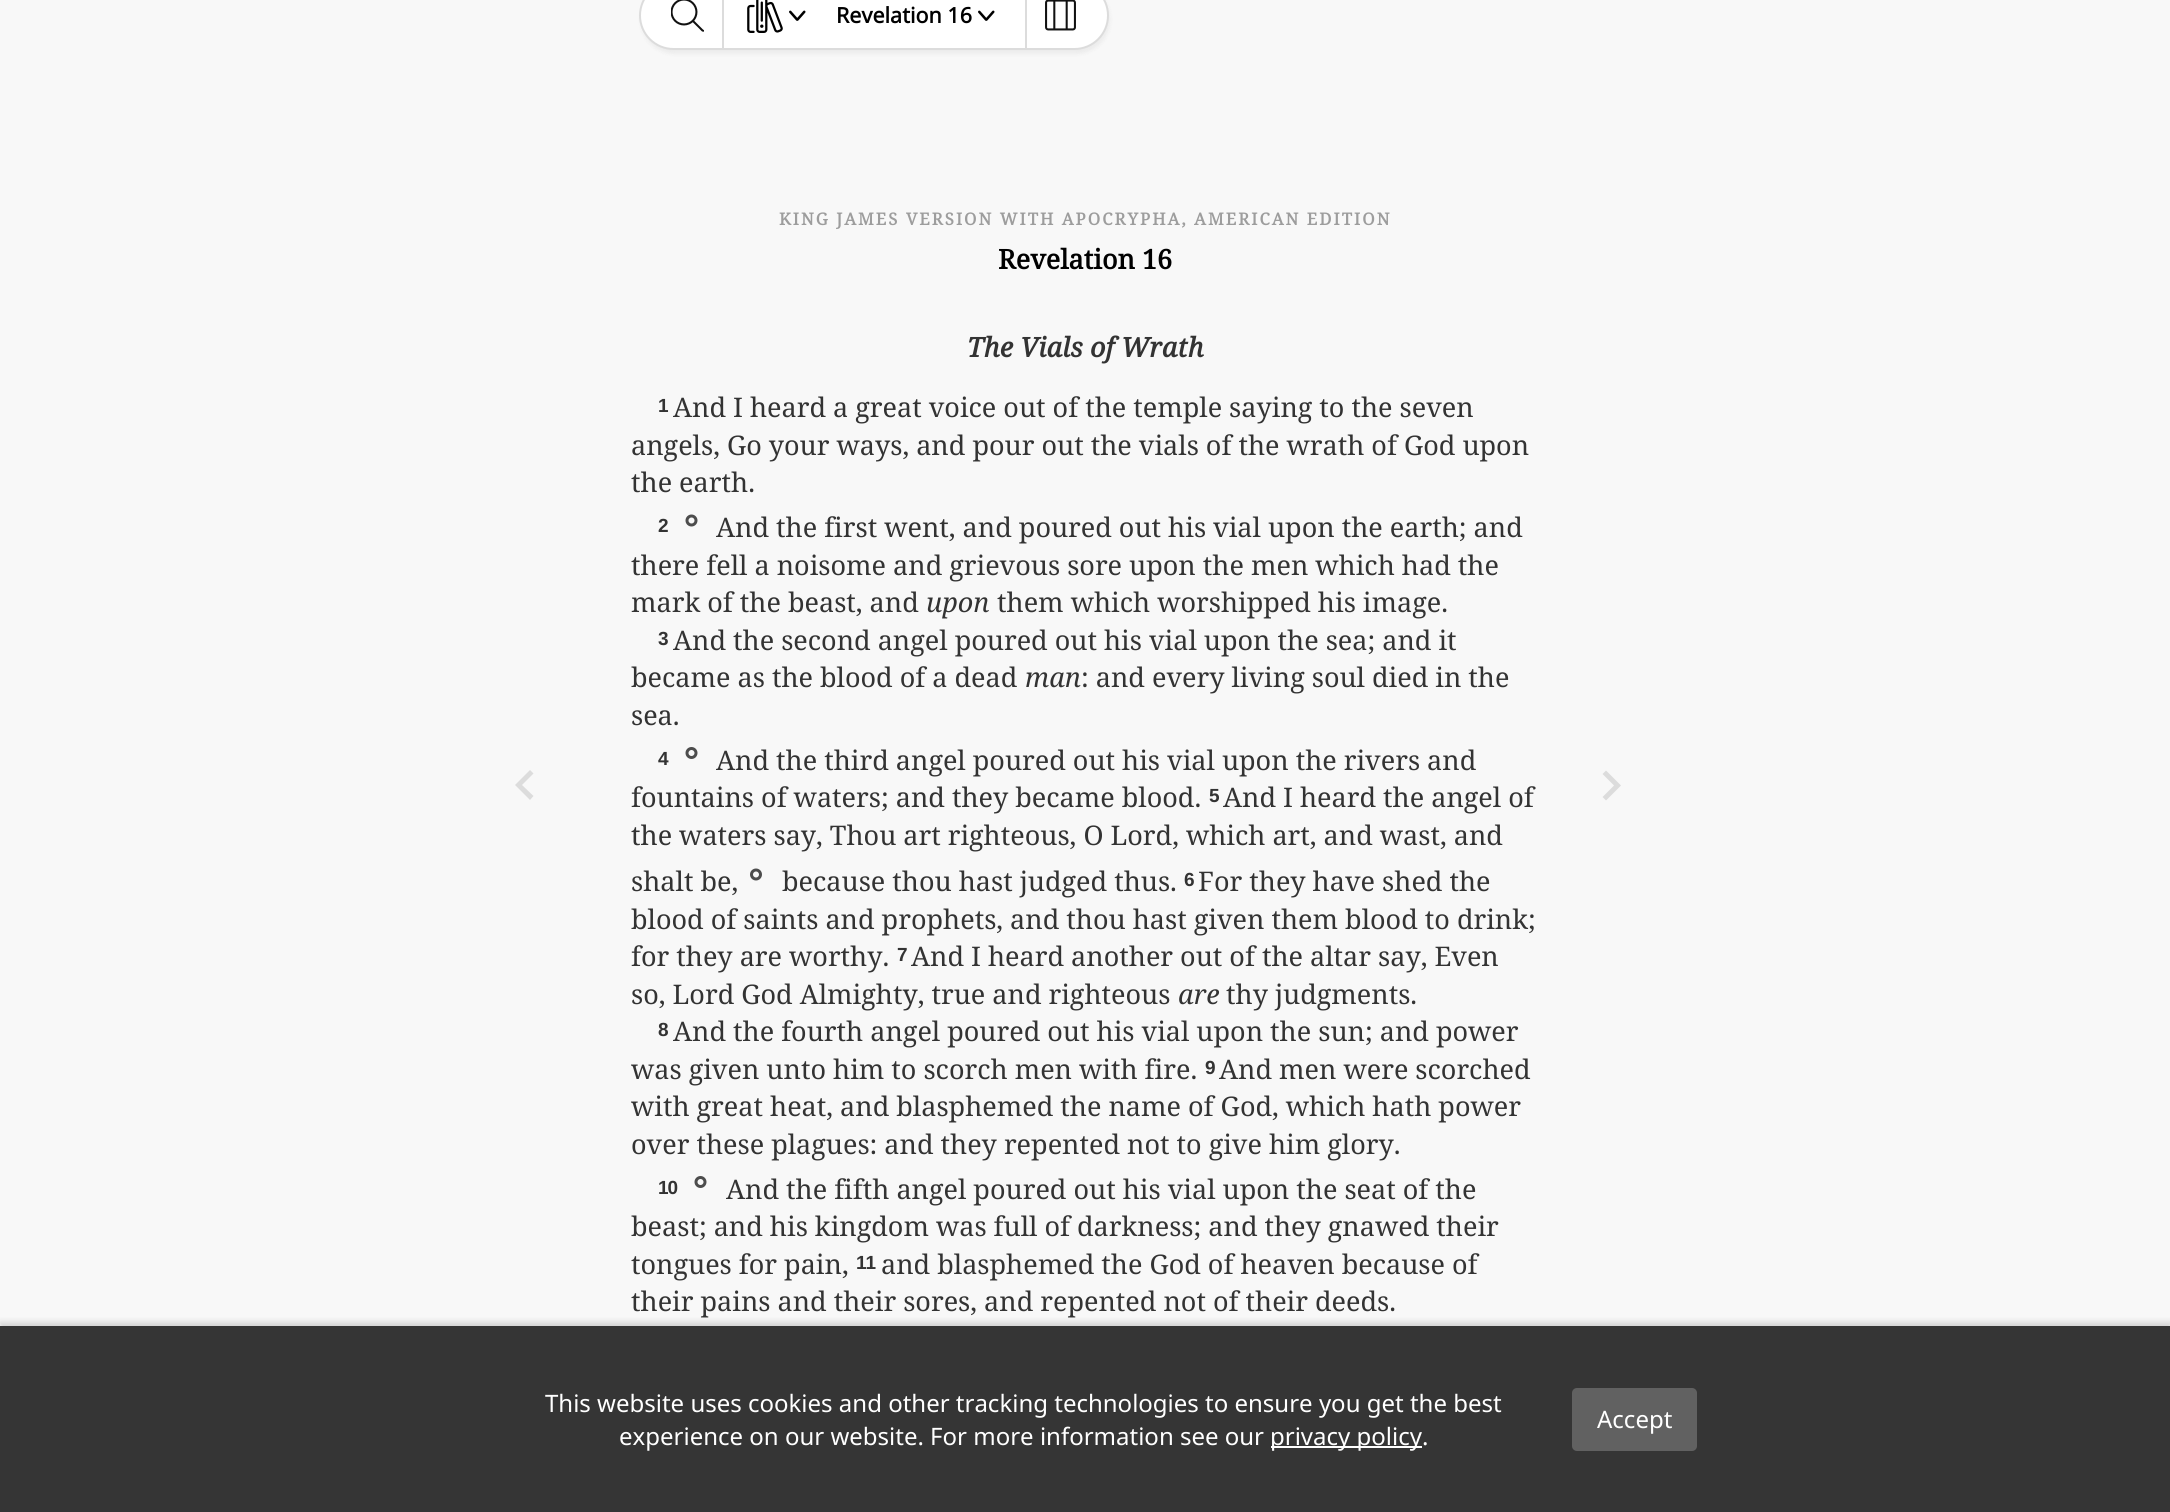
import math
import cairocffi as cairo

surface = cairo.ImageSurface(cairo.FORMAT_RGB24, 2170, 1512)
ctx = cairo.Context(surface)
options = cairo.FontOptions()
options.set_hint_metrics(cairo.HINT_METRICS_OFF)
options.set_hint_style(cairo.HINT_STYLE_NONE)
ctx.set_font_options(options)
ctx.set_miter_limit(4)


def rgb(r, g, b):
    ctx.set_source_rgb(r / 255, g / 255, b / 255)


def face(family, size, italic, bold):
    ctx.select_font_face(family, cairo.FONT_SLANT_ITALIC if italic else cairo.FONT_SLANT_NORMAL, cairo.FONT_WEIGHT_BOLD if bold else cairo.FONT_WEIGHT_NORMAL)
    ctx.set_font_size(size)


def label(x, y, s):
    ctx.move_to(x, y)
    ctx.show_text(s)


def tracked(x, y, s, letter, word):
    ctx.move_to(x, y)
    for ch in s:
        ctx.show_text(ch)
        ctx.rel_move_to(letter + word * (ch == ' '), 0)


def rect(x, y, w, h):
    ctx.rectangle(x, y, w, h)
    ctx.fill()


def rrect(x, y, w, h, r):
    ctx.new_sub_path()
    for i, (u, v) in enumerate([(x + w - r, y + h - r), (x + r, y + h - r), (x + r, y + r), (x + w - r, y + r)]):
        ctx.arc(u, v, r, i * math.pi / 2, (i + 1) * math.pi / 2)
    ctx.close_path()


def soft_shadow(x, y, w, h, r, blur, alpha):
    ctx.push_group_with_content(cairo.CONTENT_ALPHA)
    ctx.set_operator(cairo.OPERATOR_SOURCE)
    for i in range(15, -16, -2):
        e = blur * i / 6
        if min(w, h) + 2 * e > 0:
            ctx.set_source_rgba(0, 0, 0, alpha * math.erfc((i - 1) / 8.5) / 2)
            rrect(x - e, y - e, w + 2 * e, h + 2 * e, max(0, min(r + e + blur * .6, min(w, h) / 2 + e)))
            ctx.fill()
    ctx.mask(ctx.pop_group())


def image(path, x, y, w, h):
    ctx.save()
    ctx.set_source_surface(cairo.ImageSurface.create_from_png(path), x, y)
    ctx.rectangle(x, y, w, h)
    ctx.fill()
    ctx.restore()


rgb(248, 248, 248)
ctx.paint()
rgb(0, 0, 0)
soft_shadow(641, -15, 469, 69, 34.5, 2, 0.05)
rgb(255, 255, 255)
rrect(640, -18, 468, 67, 33.5)
ctx.fill_preserve()
rgb(220, 220, 220)
ctx.stroke()
rect(722, 0, 2, 48)
image('image0.png', 671, 0, 33, 32)
image('image1.png', 747, 0, 36, 33)
image('image2.png', 789, 10, 17, 11)
face('Noto Sans', 21.5, 0, 1)
rgb(0, 0, 0)
label(836, 23, 'Revelation 16')
image('image2.png', 978, 10, 17, 11)
rgb(220, 220, 220)
rect(1025, 0, 2, 48)
image('image3.png', 1045, 0, 31, 31)
ctx.new_path()
ctx.move_to(533.5, 796)
ctx.line_to(522, 785)
ctx.line_to(533.5, 773.5)
ctx.line_to(530, 770)
ctx.line_to(515, 785)
ctx.line_to(530, 800)
ctx.close_path()
ctx.fill()
face('Noto Serif', 16.8, 0, 1)
rgb(157, 157, 157)
tracked(779, 225, 'KING JAMES VERSION WITH APOCRYPHA, AMERICAN EDITION', 2.02, 0)
face('Noto Serif', 27, 0, 1)
rgb(0, 0, 0)
label(998, 269, 'Revelation 16')
face('Noto Serif', 27, 1, 1)
rgb(51, 51, 51)
label(967, 357, 'The Vials of Wrath')
face('Liberation Sans', 19, 0, 1)
tracked(658, 412, '1', -1, 0)
face('Noto Serif', 27, 0, 0)
label(673, 417, 'And I heard a great voice out of the temple saying to the seven')
label(631, 455, 'angels, Go your ways, and pour out the vials of the wrath of God upon')
label(631, 492, 'the earth.')
face('Liberation Sans', 19, 0, 1)
tracked(658, 532, '2', -1, 0)
image('image4.png', 685, 514, 13, 13)
face('Noto Serif', 27, 0, 0)
label(716, 537, 'And the first went, and poured out his vial upon the earth; and')
label(631, 575, 'there fell a noisome and grievous sore upon the men which had the')
label(631, 612, 'mark of the beast, and')
face('Noto Serif', 27, 1, 0)
label(926, 612, 'upon')
face('Noto Serif', 27, 0, 0)
label(997, 612, 'them which worshipped his image.')
face('Liberation Sans', 19, 0, 1)
tracked(658, 645, '3', -1, 0)
face('Noto Serif', 27, 0, 0)
label(673, 650, 'And the second angel poured out his vial upon the sea; and it')
label(631, 687, 'became as the blood of a dead')
face('Noto Serif', 27, 1, 0)
label(1025, 687, 'man')
face('Noto Serif', 27, 0, 0)
label(1081, 687, ': and every living soul died in the')
label(631, 725, 'sea.')
face('Liberation Sans', 19, 0, 1)
tracked(658, 765, '4', -1, 0)
image('image5.png', 685, 747, 13, 12)
face('Noto Serif', 27, 0, 0)
label(716, 770, 'And the third angel poured out his vial upon the rivers and')
label(631, 807, 'fountains of waters; and they became blood.')
face('Liberation Sans', 19, 0, 1)
tracked(1209, 802, '5', -1, 0)
face('Noto Serif', 27, 0, 0)
label(1223, 807, 'And I heard the angel of')
label(631, 845, 'the waters say, Thou art righteous, O Lord, which art, and wast, and')
label(631, 891, 'shalt be,')
image('image6.png', 750, 868, 12, 13)
label(782, 891, 'because thou hast judged thus.')
face('Liberation Sans', 19, 0, 1)
tracked(1184, 886, '6', -1, 0)
face('Noto Serif', 27, 0, 0)
label(1198, 891, 'For they have shed the')
label(631, 929, 'blood of saints and prophets, and thou hast given them blood to drink;')
label(631, 966, 'for they are worthy.')
face('Liberation Sans', 19, 0, 1)
tracked(897, 961, '7', -1, 0)
face('Noto Serif', 27, 0, 0)
label(911, 966, 'And I heard another out of the altar say, Even')
label(631, 1004, 'so, Lord God Almighty, true and righteous')
face('Noto Serif', 27, 1, 0)
label(1178, 1004, 'are')
face('Noto Serif', 27, 0, 0)
label(1226, 1004, 'thy judgments.')
face('Liberation Sans', 19, 0, 1)
tracked(658, 1036, '8', -1, 0)
face('Noto Serif', 27, 0, 0)
label(673, 1041, 'And the fourth angel poured out his vial upon the sun; and power')
label(631, 1079, 'was given unto him to scorch men with fire.')
face('Liberation Sans', 19, 0, 1)
tracked(1205, 1074, '9', -1, 0)
face('Noto Serif', 27, 0, 0)
label(1219, 1079, 'And men were scorched')
label(631, 1116, 'with great heat, and blasphemed the name of God, which hath power')
label(631, 1154, 'over these plagues: and they repented not to give him glory.')
face('Liberation Sans', 19, 0, 1)
tracked(658, 1194, '10', -1, 0)
image('image5.png', 694, 1176, 13, 12)
face('Noto Serif', 27, 0, 0)
label(726, 1199, 'And the fifth angel poured out his vial upon the seat of the')
label(631, 1236, 'beast; and his kingdom was full of darkness; and they gnawed their')
label(631, 1274, 'tongues for pain,')
face('Liberation Sans', 19, 0, 1)
tracked(856, 1269, '11', -1, 0)
face('Noto Serif', 27, 0, 0)
label(881, 1274, 'and blasphemed the God of heaven because of')
label(631, 1311, 'their pains and their sores, and repented not of their deeds.')
rgb(220, 220, 220)
ctx.new_path()
ctx.move_to(1602.5, 797)
ctx.line_to(1614, 785.5)
ctx.line_to(1602.5, 774)
ctx.line_to(1606, 770.5)
ctx.line_to(1621, 785.5)
ctx.line_to(1606, 800.5)
ctx.close_path()
ctx.fill()
rgb(0, 0, 0)
soft_shadow(0, 1322, 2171, 186, 0, 3, 0.15)
rgb(53, 53, 53)
rect(0, 1326, 2170, 186)
face('Noto Sans', 24, 0, 0)
rgb(255, 255, 255)
label(545, 1412, 'This website uses cookies and other tracking technologies to ensure you get the best')
label(619, 1445, 'experience on our website. For more information see our')
rect(1271, 1446, 151, 2)
label(1270, 1445, 'privacy policy.')
rgb(97, 97, 97)
rrect(1572, 1388, 125, 63, 5)
ctx.fill()
rgb(255, 255, 255)
label(1597, 1428, 'Accept')
surface.write_to_png('render.png')
